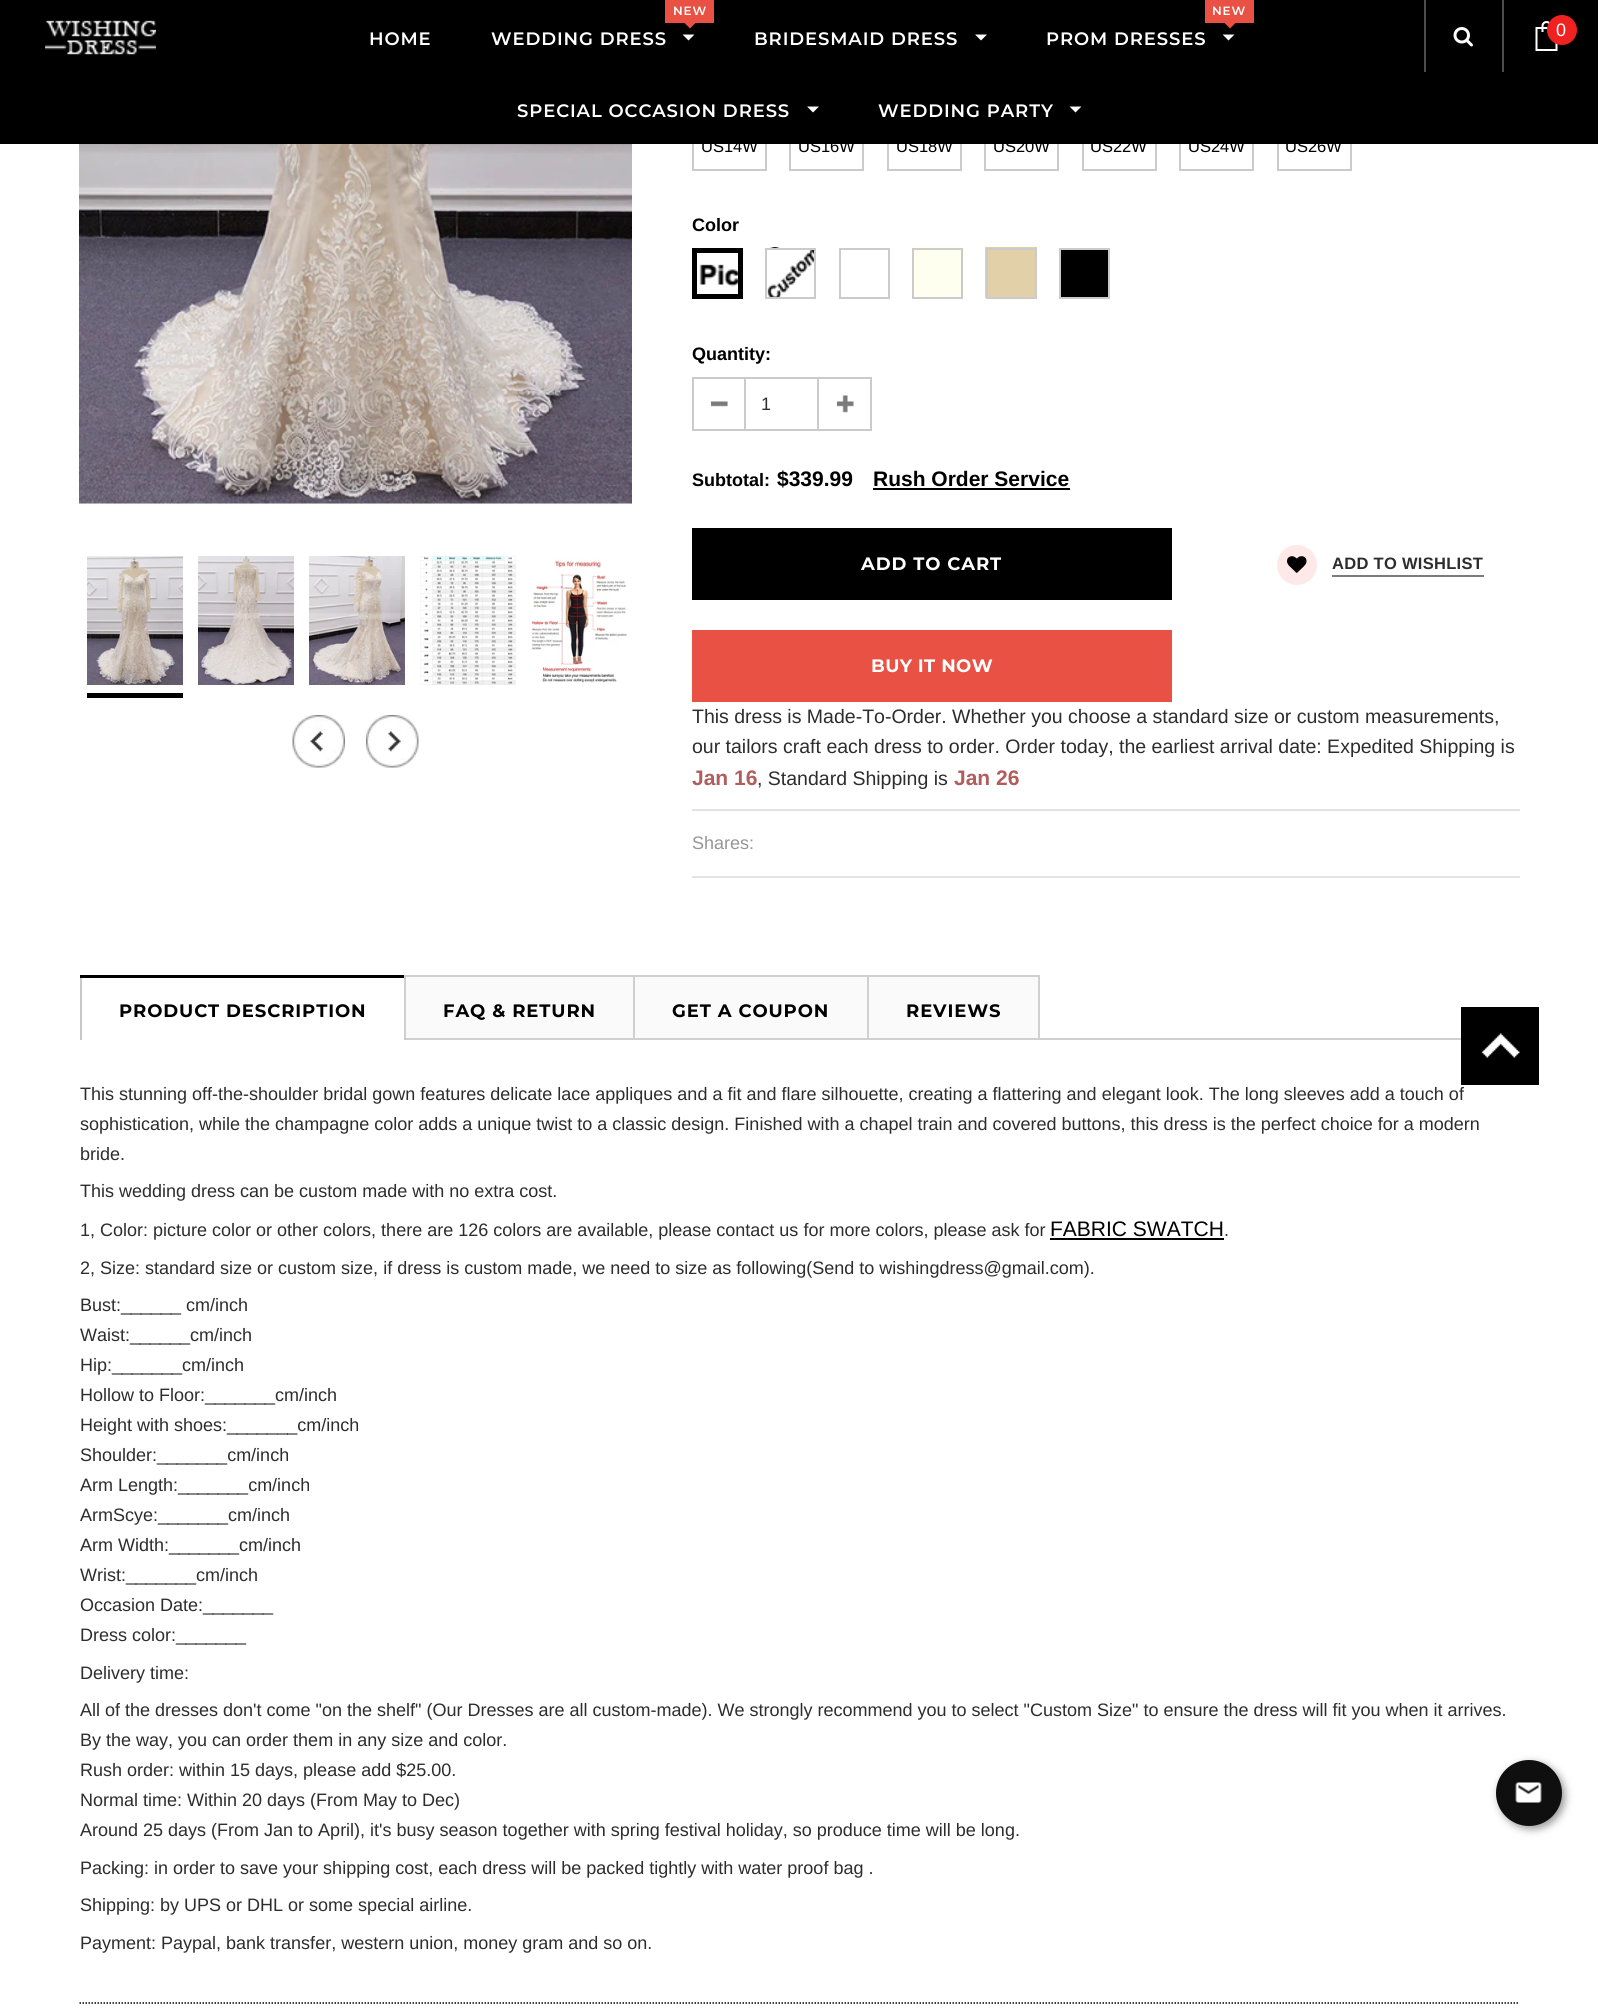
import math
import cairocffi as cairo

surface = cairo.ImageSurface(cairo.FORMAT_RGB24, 1598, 2011)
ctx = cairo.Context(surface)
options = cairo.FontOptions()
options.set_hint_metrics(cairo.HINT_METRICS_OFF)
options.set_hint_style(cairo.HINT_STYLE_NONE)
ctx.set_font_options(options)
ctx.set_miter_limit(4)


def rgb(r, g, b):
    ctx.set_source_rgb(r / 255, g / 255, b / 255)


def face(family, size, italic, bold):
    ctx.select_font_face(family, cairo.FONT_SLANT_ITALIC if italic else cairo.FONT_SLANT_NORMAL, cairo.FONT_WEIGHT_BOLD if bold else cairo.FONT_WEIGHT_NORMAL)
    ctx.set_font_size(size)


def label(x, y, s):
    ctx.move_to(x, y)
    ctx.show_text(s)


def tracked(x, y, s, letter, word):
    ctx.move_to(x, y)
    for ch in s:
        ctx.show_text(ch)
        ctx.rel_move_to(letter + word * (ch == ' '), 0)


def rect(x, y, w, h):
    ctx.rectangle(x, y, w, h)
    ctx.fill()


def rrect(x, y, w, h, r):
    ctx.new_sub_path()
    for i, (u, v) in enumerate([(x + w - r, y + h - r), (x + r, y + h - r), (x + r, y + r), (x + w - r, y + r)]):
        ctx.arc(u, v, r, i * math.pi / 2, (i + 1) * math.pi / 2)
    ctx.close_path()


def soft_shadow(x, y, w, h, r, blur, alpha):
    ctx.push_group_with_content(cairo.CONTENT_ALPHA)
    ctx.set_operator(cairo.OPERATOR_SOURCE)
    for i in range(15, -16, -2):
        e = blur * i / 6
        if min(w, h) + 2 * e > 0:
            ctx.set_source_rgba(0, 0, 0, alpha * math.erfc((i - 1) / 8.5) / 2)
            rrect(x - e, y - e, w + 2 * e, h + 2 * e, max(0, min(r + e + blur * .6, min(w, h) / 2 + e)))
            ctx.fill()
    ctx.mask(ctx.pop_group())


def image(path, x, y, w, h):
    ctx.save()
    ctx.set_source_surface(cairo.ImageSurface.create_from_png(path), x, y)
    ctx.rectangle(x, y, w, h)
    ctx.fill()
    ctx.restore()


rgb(255, 255, 255)
ctx.paint()
ctx.rectangle(693, 121, 73, 49)
rgb(203, 203, 203)
ctx.stroke()
ctx.rectangle(790, 121, 73, 49)
ctx.stroke()
ctx.rectangle(888, 121, 73, 49)
ctx.stroke()
ctx.rectangle(985, 121, 73, 49)
ctx.stroke()
ctx.rectangle(1083, 121, 73, 49)
ctx.stroke()
ctx.rectangle(1180, 121, 73, 49)
ctx.stroke()
ctx.rectangle(1278, 121, 73, 49)
ctx.stroke()
rgb(0, 0, 0)
rect(0, 0, 1598, 144)
image('image0.png', 45, 20, 111, 35)
face('Montserrat SemiBold', 18, 0, 0)
rgb(255, 255, 255)
tracked(369, 45, 'HOME', 0.9, 0)
rgb(233, 81, 68)
ctx.new_path()
ctx.move_to(684, 22.5)
ctx.line_to(696, 22.5)
ctx.line_to(690, 28.5)
ctx.close_path()
ctx.fill()
rect(665, 0, 49, 23)
face('Montserrat SemiBold', 12, 0, 0)
rgb(255, 255, 255)
tracked(673, 15, 'NEW', 0.9, 0)
face('Montserrat SemiBold', 18, 0, 0)
tracked(491, 45, 'WEDDING DRESS', 0.9, 0)
ctx.new_path()
ctx.move_to(682.5, 34.5)
ctx.line_to(694.5, 34.5)
ctx.line_to(688.5, 40.5)
ctx.close_path()
ctx.fill()
tracked(754, 45, 'BRIDESMAID DRESS', 0.9, 0)
ctx.new_path()
ctx.move_to(975, 34.5)
ctx.line_to(987, 34.5)
ctx.line_to(981, 40.5)
ctx.close_path()
ctx.fill()
rgb(233, 81, 68)
ctx.new_path()
ctx.move_to(1224, 22.5)
ctx.line_to(1236, 22.5)
ctx.line_to(1230, 28.5)
ctx.close_path()
ctx.fill()
rect(1205, 0, 49, 23)
face('Montserrat SemiBold', 12, 0, 0)
rgb(255, 255, 255)
tracked(1212, 15, 'NEW', 0.9, 0)
face('Montserrat SemiBold', 18, 0, 0)
tracked(1046, 45, 'PROM DRESSES', 0.9, 0)
ctx.new_path()
ctx.move_to(1222.5, 34.5)
ctx.line_to(1234.5, 34.5)
ctx.line_to(1228.5, 40.5)
ctx.close_path()
ctx.fill()
tracked(517, 117, 'SPECIAL OCCASION DRESS', 0.9, 0)
ctx.new_path()
ctx.move_to(807, 106.5)
ctx.line_to(819, 106.5)
ctx.line_to(813, 112.5)
ctx.close_path()
ctx.fill()
tracked(878, 117, 'WEDDING PARTY', 0.9, 0)
ctx.new_path()
ctx.move_to(1069.5, 106.5)
ctx.line_to(1081.5, 106.5)
ctx.line_to(1075.5, 112.5)
ctx.close_path()
ctx.fill()
rgb(77, 77, 77)
rect(1424, 0, 2, 72)
image('image1.png', 1453, 27, 20, 20)
rect(1502, 0, 2, 72)
image('image2.png', 1535, 21, 23, 30)
rgb(240, 33, 33)
ctx.arc(1562, 30, 15, 0, 2 * math.pi)
ctx.fill()
face('Arimo', 18, 0, 0)
rgb(255, 255, 255)
tracked(1556, 36, '0', 0.4, 0)
image('image3.png', 79, 144, 553, 360)
rgb(0, 0, 0)
rect(87, 693, 96, 5)
image('image4.png', 87, 556, 96, 129)
image('image5.png', 198, 556, 96, 129)
image('image6.png', 309, 556, 96, 129)
image('image7.png', 420, 556, 96, 129)
image('image8.png', 531, 556, 96, 127)
image('image9.png', 292, 715, 53, 53)
image('image10.png', 366, 715, 53, 53)
face('Arimo', 16.5, 0, 0)
label(701, 152, 'US14W')
label(798, 152, 'US16W')
label(896, 152, 'US18W')
label(993, 152, 'US20W')
label(1090, 152, 'US22W')
label(1188, 152, 'US24W')
label(1285, 152, 'US26W')
face('Arimo', 18, 0, 1)
label(692, 231, 'Color')
image('image11.png', 699, 264, 39, 23)
ctx.rectangle(694.5, 250.5, 46, 46)
ctx.set_line_width(5)
ctx.stroke()
image('image12.png', 767, 247, 47, 50)
ctx.rectangle(766, 249, 49, 49)
rgb(203, 203, 203)
ctx.set_line_width(2)
ctx.stroke()
ctx.rectangle(840, 249, 49, 49)
ctx.stroke()
rgb(255, 255, 240)
ctx.rectangle(913, 249, 49, 49)
ctx.fill_preserve()
rgb(203, 203, 203)
ctx.stroke()
rgb(255, 255, 240)
rect(912, 247, 51, 1)
rgb(226, 208, 168)
rect(985, 247, 52, 51)
ctx.rectangle(987, 249, 49, 49)
rgb(203, 203, 203)
ctx.stroke()
rgb(0, 0, 0)
ctx.rectangle(1060, 249, 49, 49)
ctx.fill_preserve()
rgb(203, 203, 203)
ctx.stroke()
rgb(0, 0, 0)
label(692, 360, 'Quantity:')
image('image13.png', 711, 401, 17, 6)
rgb(203, 203, 203)
rect(692, 377, 52, 2)
rect(692, 429, 52, 2)
rect(692, 377, 2, 54)
ctx.rectangle(745, 378, 73, 52)
ctx.stroke()
face('Arimo', 18, 0, 0)
rgb(45, 45, 45)
label(761, 410, '1')
image('image14.png', 837, 395, 17, 18)
rgb(203, 203, 203)
rect(819, 377, 53, 2)
rect(870, 377, 2, 54)
rect(819, 429, 53, 2)
face('Arimo', 18, 0, 1)
rgb(0, 0, 0)
label(692, 486, 'Subtotal:')
face('Arimo', 21, 0, 1)
label(777, 486, '$339.99')
label(873, 486, 'Rush Order Service')
rect(873, 488, 197, 2)
rect(692, 528, 480, 72)
face('Montserrat', 18, 0, 1)
rgb(255, 255, 255)
tracked(861, 570, 'ADD TO CART', 0.9, 0)
rgb(255, 232, 232)
ctx.new_path()
ctx.arc(1297, 565, 19, 0, 2 * math.pi)
ctx.fill_preserve()
ctx.stroke()
image('image15.png', 1287, 556, 20, 17)
rgb(123, 123, 123)
rect(1332, 575, 152, 2)
face('Arimo', 16.5, 0, 1)
rgb(45, 45, 45)
tracked(1332, 569, 'ADD TO WISHLIST', 0.3, 0)
rgb(233, 81, 68)
rect(692, 630, 480, 72)
face('Montserrat', 18, 0, 1)
rgb(255, 255, 255)
tracked(871, 672, 'BUY IT NOW', 0.4, 0)
face('Arimo', 19.5, 0, 0)
rgb(45, 45, 45)
label(692, 723, 'This dress is Made-To-Order. Whether you choose a standard size or custom measurements,')
label(692, 753, 'our tailors craft each dress to order. Order today, the earliest arrival date: Expedited Shipping is')
face('Arimo', 21, 0, 1)
rgb(176, 93, 93)
label(692, 785, 'Jan 16')
face('Arimo', 19.5, 0, 0)
rgb(45, 45, 45)
label(757, 785, ', Standard Shipping is')
face('Arimo', 21, 0, 1)
rgb(176, 93, 93)
label(954, 785, 'Jan 26')
rgb(227, 227, 227)
rect(692, 809, 828, 2)
rect(692, 876, 828, 2)
face('Arimo', 18, 0, 0)
rgb(150, 150, 150)
label(692, 849, 'Shares:')
rgb(208, 208, 208)
rect(406, 1038, 1055, 2)
rgb(0, 0, 0)
rect(80, 975, 325, 3)
rgb(200, 200, 200)
rect(404, 1038, 2, 2)
rect(80, 978, 2, 62)
face('Montserrat', 18, 0, 1)
rgb(0, 0, 0)
tracked(119, 1017, 'PRODUCT DESCRIPTION', 0.9, 0)
rgb(250, 250, 250)
rect(406, 977, 227, 61)
rgb(208, 208, 208)
rect(404, 975, 636, 2)
rect(404, 975, 2, 63)
rgb(0, 0, 0)
tracked(443, 1017, 'FAQ & RETURN', 0.9, 0)
rgb(250, 250, 250)
rect(635, 977, 232, 61)
rgb(208, 208, 208)
rect(633, 975, 2, 63)
rgb(0, 0, 0)
tracked(672, 1017, 'GET A COUPON', 0.9, 0)
rgb(250, 250, 250)
rect(869, 977, 169, 61)
rgb(208, 208, 208)
rect(1038, 975, 2, 63)
rect(867, 975, 2, 63)
rgb(0, 0, 0)
tracked(906, 1017, 'REVIEWS', 0.9, 0)
face('Arimo', 18, 0, 0)
rgb(45, 45, 45)
label(80, 1100, 'This stunning off-the-shoulder bridal gown features delicate lace appliques and a fit and flare silhouette, creating a flattering and elegant look. The long sleeves add a touch of')
label(80, 1130, 'sophistication, while the champagne color adds a unique twist to a classic design. Finished with a chapel train and covered buttons, this dress is the perfect choice for a modern')
label(80, 1160, 'bride.')
label(80, 1197, 'This wedding dress can be custom made with no extra cost.')
label(80, 1236, '1, Color: picture color or other colors, there are 126 colors are available, please contact us for more colors, please ask for')
face('Arimo', 21, 0, 0)
rgb(0, 0, 0)
label(1050, 1236, 'FABRIC SWATCH')
rect(1050, 1238, 174, 2)
face('Arimo', 18, 0, 0)
rgb(45, 45, 45)
label(1224, 1236, '.')
label(80, 1274, '2, Size: standard size or custom size, if dress is custom made, we need to size as following(Send to wishingdress@gmail.com).')
label(80, 1311, 'Bust:______ cm/inch')
label(80, 1341, 'Waist:______cm/inch')
label(80, 1371, 'Hip:_______cm/inch')
label(80, 1401, 'Hollow to Floor:_______cm/inch')
label(80, 1431, 'Height with shoes:_______cm/inch')
label(80, 1461, 'Shoulder:_______cm/inch')
label(80, 1491, 'Arm Length:_______cm/inch')
label(80, 1521, 'ArmScye:_______cm/inch')
label(80, 1551, 'Arm Width:_______cm/inch')
label(80, 1581, 'Wrist:_______cm/inch')
label(80, 1611, 'Occasion Date:_______')
label(80, 1641, 'Dress color:_______')
label(80, 1679, 'Delivery time:')
label(80, 1716, 'All of the dresses don\'t come "on the shelf" (Our Dresses are all custom-made). We strongly recommend you to select "Custom Size" to ensure the dress will fit you when it arrives.')
label(80, 1746, 'By the way, you can order them in any size and color.')
label(80, 1776, 'Rush order: within 15 days, please add $25.00.')
label(80, 1806, 'Normal time: Within 20 days (From May to Dec)')
label(80, 1836, 'Around 25 days (From Jan to April), it\'s busy season together with spring festival holiday, so produce time will be long.')
label(80, 1874, 'Packing: in order to save your shipping cost, each dress will be packed tightly with water proof bag .')
label(80, 1911, 'Shipping: by UPS or DHL or some special airline.')
label(80, 1949, 'Payment: Paypal, bank transfer, western union, money gram and so on.')
ctx.new_path()
ctx.move_to(79.5, 2003)
ctx.line_to(1519.5, 2003)
rgb(0, 0, 0)
ctx.set_line_width(1.5)
ctx.set_dash([1.5, 1.5])
ctx.stroke()
rect(1461, 1007, 78, 78)
image('image16.png', 1481, 1033, 39, 25)
rgb(153, 153, 153)
soft_shadow(1499, 1763, 66, 66, 33, 4, 1)
rgb(15, 15, 15)
ctx.arc(1529, 1793, 33, 0, 2 * math.pi)
ctx.fill()
image('image17.png', 1515, 1782, 27, 21)
surface.write_to_png('render.png')
